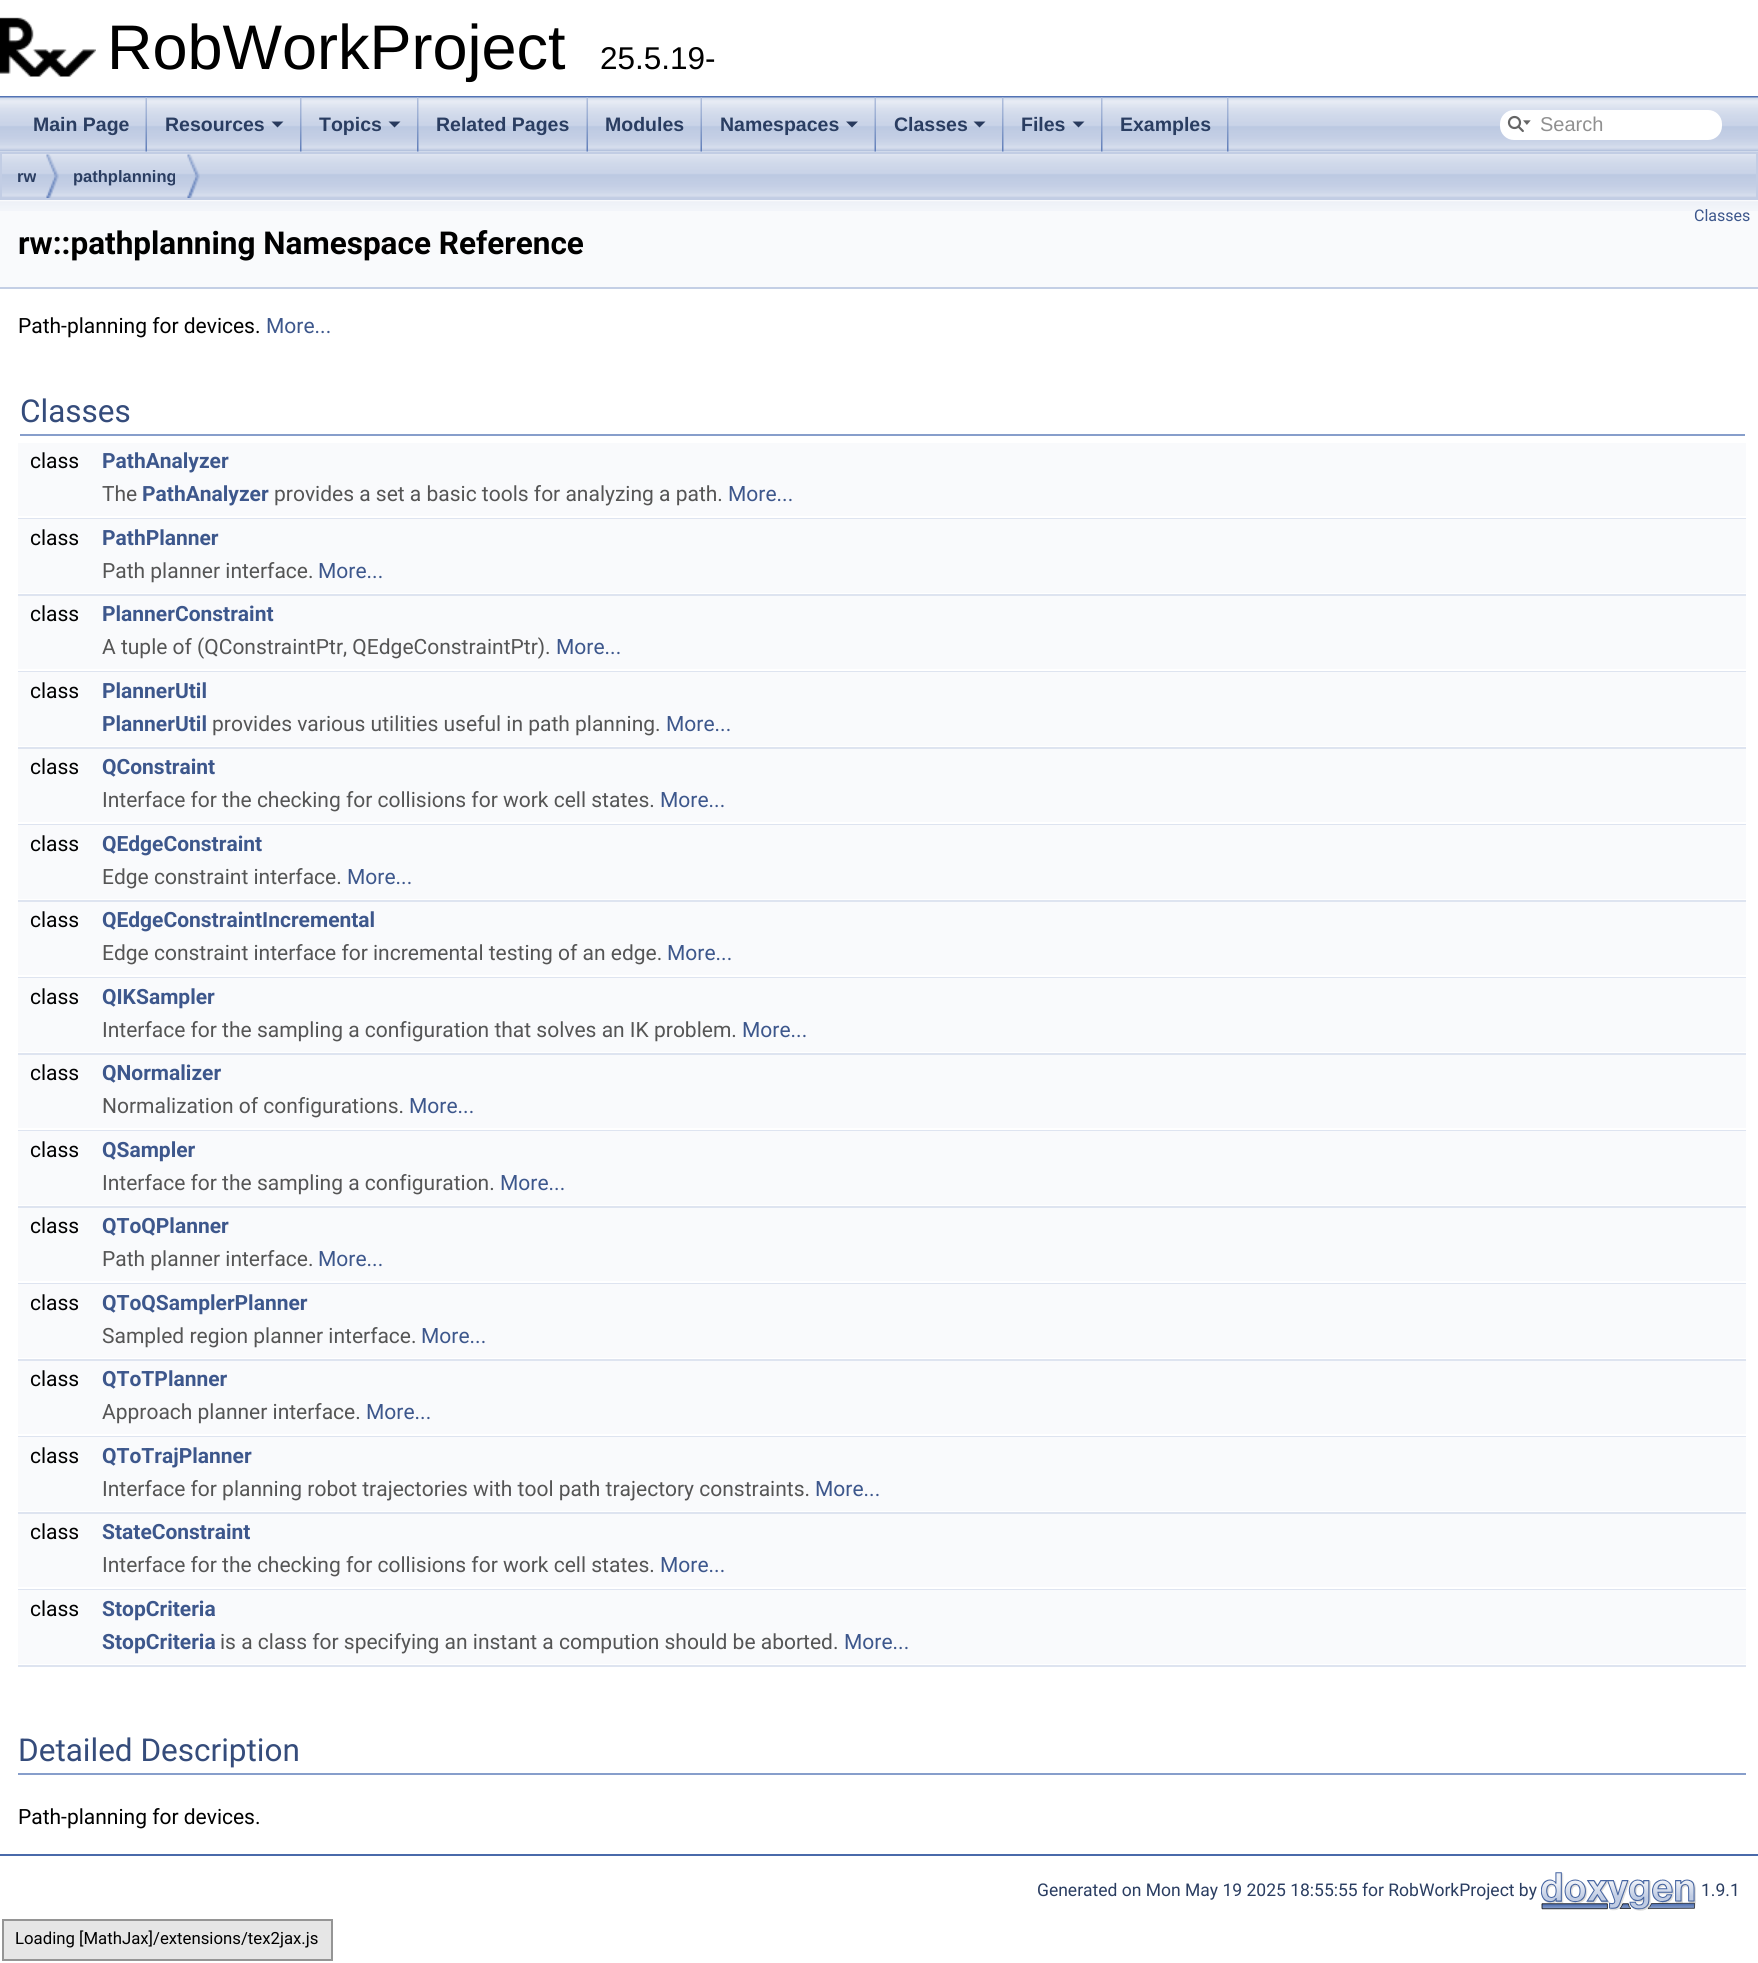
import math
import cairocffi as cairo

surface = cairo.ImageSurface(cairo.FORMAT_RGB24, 1758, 1963)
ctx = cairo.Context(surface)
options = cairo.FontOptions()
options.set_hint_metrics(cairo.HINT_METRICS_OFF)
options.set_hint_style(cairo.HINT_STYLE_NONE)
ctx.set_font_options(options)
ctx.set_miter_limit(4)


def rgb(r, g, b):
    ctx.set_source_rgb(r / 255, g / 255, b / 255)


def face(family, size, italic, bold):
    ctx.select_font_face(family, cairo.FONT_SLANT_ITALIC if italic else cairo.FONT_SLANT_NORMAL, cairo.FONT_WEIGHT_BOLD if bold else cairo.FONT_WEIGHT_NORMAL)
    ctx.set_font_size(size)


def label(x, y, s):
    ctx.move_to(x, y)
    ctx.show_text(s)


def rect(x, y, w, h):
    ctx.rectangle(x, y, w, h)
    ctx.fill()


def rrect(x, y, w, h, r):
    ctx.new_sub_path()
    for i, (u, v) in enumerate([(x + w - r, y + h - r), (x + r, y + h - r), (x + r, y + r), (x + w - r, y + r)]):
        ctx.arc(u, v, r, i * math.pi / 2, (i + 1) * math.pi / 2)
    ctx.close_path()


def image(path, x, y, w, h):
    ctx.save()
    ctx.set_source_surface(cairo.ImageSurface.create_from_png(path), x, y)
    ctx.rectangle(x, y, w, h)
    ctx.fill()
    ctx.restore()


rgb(255, 255, 255)
ctx.paint()
rgb(83, 115, 180)
rect(0, 96, 1758, 2)
image('image0.png', 0, 17, 96, 60)
face('Liberation Sans', 63, 0, 0)
rgb(0, 0, 0)
label(107, 69, 'RobWorkProject')
face('Liberation Sans', 31.5, 0, 0)
label(600, 69, '25.5.19-')
image('image5.png', 0, 151, 1758, 47)
image('image1.png', 0, 97, 1758, 55)
image('image2.png', 145, 97, 2, 55)
face('Liberation Sans', 19.5, 0, 1)
rgb(42, 61, 97)
label(33, 131, 'Main Page')
image('image3.png', 300, 97, 2, 55)
label(165, 131, 'Resources')
rgb(40, 58, 93)
ctx.new_path()
ctx.move_to(271.5, 121.5)
ctx.line_to(283.5, 121.5)
ctx.line_to(277.5, 127.5)
ctx.close_path()
ctx.fill()
image('image3.png', 417, 97, 2, 55)
rgb(42, 61, 97)
label(319, 131, 'Topics')
rgb(40, 58, 93)
ctx.new_path()
ctx.move_to(388.5, 121.5)
ctx.line_to(400.5, 121.5)
ctx.line_to(394.5, 127.5)
ctx.close_path()
ctx.fill()
image('image2.png', 586, 97, 2, 55)
rgb(42, 61, 97)
label(436, 131, 'Related Pages')
image('image2.png', 700, 97, 2, 55)
label(605, 131, 'Modules')
image('image2.png', 874, 97, 2, 55)
label(720, 131, 'Namespaces')
rgb(40, 58, 93)
ctx.new_path()
ctx.move_to(846, 121.5)
ctx.line_to(858, 121.5)
ctx.line_to(852, 127.5)
ctx.close_path()
ctx.fill()
image('image3.png', 1002, 97, 2, 55)
rgb(42, 61, 97)
label(894, 131, 'Classes')
rgb(40, 58, 93)
ctx.new_path()
ctx.move_to(973.5, 121.5)
ctx.line_to(985.5, 121.5)
ctx.line_to(979.5, 127.5)
ctx.close_path()
ctx.fill()
image('image3.png', 1101, 97, 2, 55)
rgb(42, 61, 97)
label(1021, 131, 'Files')
rgb(40, 58, 93)
ctx.new_path()
ctx.move_to(1072.5, 121.5)
ctx.line_to(1084.5, 121.5)
ctx.line_to(1078.5, 127.5)
ctx.close_path()
ctx.fill()
image('image3.png', 1227, 97, 2, 55)
rgb(42, 61, 97)
label(1120, 131, 'Examples')
rgb(255, 255, 255)
rrect(1500, 110, 222, 30, 14)
ctx.fill()
image('image4.png', 1507, 115, 24, 18)
face('Liberation Sans', 20, 0, 0)
rgb(144, 144, 144)
label(1540, 131, 'Search')
ctx.rectangle(1, 153, 1756, 46)
rgb(194, 205, 228)
ctx.stroke()
image('image6.png', 46, 154, 13, 44)
face('Liberation Sans', 16.5, 0, 1)
rgb(42, 61, 97)
label(17, 182, 'rw')
image('image6.png', 187, 154, 13, 44)
label(73, 182, 'pathplanning')
rgb(249, 250, 252)
rect(0, 200, 1758, 87)
image('image7.png', 0, 201, 1758, 10)
rgb(196, 207, 229)
rect(0, 287, 1758, 2)
face('Roboto', 16, 0, 0)
rgb(61, 87, 140)
label(1694, 221, 'Classes')
face('Roboto', 31.5, 0, 1)
rgb(0, 0, 0)
label(18, 254, 'rw::pathplanning Namespace Reference')
face('Roboto', 21, 0, 0)
label(18, 333, 'Path-planning for devices.')
rgb(61, 87, 140)
label(266, 333, 'More...')
rgb(135, 158, 203)
rect(20, 434, 1725, 2)
face('Roboto', 31.5, 0, 0)
rgb(53, 76, 123)
label(20, 422, 'Classes')
rgb(249, 250, 252)
rect(18, 443, 1728, 34)
face('Roboto', 21, 0, 0)
rgb(0, 0, 0)
label(30, 468, 'class')
face('Roboto', 21, 0, 1)
rgb(61, 87, 140)
label(102, 468, 'PathAnalyzer')
rgb(249, 250, 252)
rect(18, 477, 1728, 39)
face('Roboto', 21, 0, 0)
rgb(85, 85, 85)
label(102, 501, 'The')
face('Roboto', 21, 0, 1)
rgb(61, 87, 140)
label(142, 501, 'PathAnalyzer')
face('Roboto', 21, 0, 0)
rgb(85, 85, 85)
label(274, 501, 'provides a set a basic tools for analyzing a path.')
rgb(61, 87, 140)
label(728, 501, 'More...')
rgb(222, 228, 240)
rect(18, 518, 1728, 1)
rgb(249, 250, 252)
rect(18, 519, 1728, 35)
rgb(0, 0, 0)
label(30, 545, 'class')
face('Roboto', 21, 0, 1)
rgb(61, 87, 140)
label(102, 545, 'PathPlanner')
rgb(249, 250, 252)
rect(18, 554, 1728, 39)
face('Roboto', 21, 0, 0)
rgb(85, 85, 85)
label(102, 578, 'Path planner interface.')
rgb(61, 87, 140)
label(318, 578, 'More...')
rgb(222, 228, 240)
rect(18, 594, 1728, 2)
rgb(249, 250, 252)
rect(18, 596, 1728, 34)
rgb(0, 0, 0)
label(30, 621, 'class')
face('Roboto', 21, 0, 1)
rgb(61, 87, 140)
label(102, 621, 'PlannerConstraint')
rgb(249, 250, 252)
rect(18, 630, 1728, 39)
face('Roboto', 21, 0, 0)
rgb(85, 85, 85)
label(102, 654, 'A tuple of (QConstraintPtr, QEdgeConstraintPtr).')
rgb(61, 87, 140)
label(556, 654, 'More...')
rgb(222, 228, 240)
rect(18, 671, 1728, 1)
rgb(249, 250, 252)
rect(18, 672, 1728, 35)
rgb(0, 0, 0)
label(30, 698, 'class')
face('Roboto', 21, 0, 1)
rgb(61, 87, 140)
label(102, 698, 'PlannerUtil')
rgb(249, 250, 252)
rect(18, 707, 1728, 39)
rgb(61, 87, 140)
label(102, 731, 'PlannerUtil')
face('Roboto', 21, 0, 0)
rgb(85, 85, 85)
label(212, 731, 'provides various utilities useful in path planning.')
rgb(61, 87, 140)
label(666, 731, 'More...')
rgb(222, 228, 240)
rect(18, 747, 1728, 2)
rgb(249, 250, 252)
rect(18, 749, 1728, 34)
rgb(0, 0, 0)
label(30, 774, 'class')
face('Roboto', 21, 0, 1)
rgb(61, 87, 140)
label(102, 774, 'QConstraint')
rgb(249, 250, 252)
rect(18, 783, 1728, 39)
face('Roboto', 21, 0, 0)
rgb(85, 85, 85)
label(102, 807, 'Interface for the checking for collisions for work cell states.')
rgb(61, 87, 140)
label(660, 807, 'More...')
rgb(222, 228, 240)
rect(18, 824, 1728, 1)
rgb(249, 250, 252)
rect(18, 825, 1728, 35)
rgb(0, 0, 0)
label(30, 851, 'class')
face('Roboto', 21, 0, 1)
rgb(61, 87, 140)
label(102, 851, 'QEdgeConstraint')
rgb(249, 250, 252)
rect(18, 860, 1728, 39)
face('Roboto', 21, 0, 0)
rgb(85, 85, 85)
label(102, 884, 'Edge constraint interface.')
rgb(61, 87, 140)
label(347, 884, 'More...')
rgb(222, 228, 240)
rect(18, 900, 1728, 2)
rgb(249, 250, 252)
rect(18, 902, 1728, 34)
rgb(0, 0, 0)
label(30, 927, 'class')
face('Roboto', 21, 0, 1)
rgb(61, 87, 140)
label(102, 927, 'QEdgeConstraintIncremental')
rgb(249, 250, 252)
rect(18, 936, 1728, 39)
face('Roboto', 21, 0, 0)
rgb(85, 85, 85)
label(102, 960, 'Edge constraint interface for incremental testing of an edge.')
rgb(61, 87, 140)
label(667, 960, 'More...')
rgb(222, 228, 240)
rect(18, 977, 1728, 1)
rgb(249, 250, 252)
rect(18, 978, 1728, 35)
rgb(0, 0, 0)
label(30, 1004, 'class')
face('Roboto', 21, 0, 1)
rgb(61, 87, 140)
label(102, 1004, 'QIKSampler')
rgb(249, 250, 252)
rect(18, 1013, 1728, 39)
face('Roboto', 21, 0, 0)
rgb(85, 85, 85)
label(102, 1037, 'Interface for the sampling a configuration that solves an IK problem.')
rgb(61, 87, 140)
label(742, 1037, 'More...')
rgb(222, 228, 240)
rect(18, 1053, 1728, 2)
rgb(249, 250, 252)
rect(18, 1055, 1728, 34)
rgb(0, 0, 0)
label(30, 1080, 'class')
face('Roboto', 21, 0, 1)
rgb(61, 87, 140)
label(102, 1080, 'QNormalizer')
rgb(249, 250, 252)
rect(18, 1089, 1728, 39)
face('Roboto', 21, 0, 0)
rgb(85, 85, 85)
label(102, 1113, 'Normalization of configurations.')
rgb(61, 87, 140)
label(409, 1113, 'More...')
rgb(222, 228, 240)
rect(18, 1130, 1728, 1)
rgb(249, 250, 252)
rect(18, 1131, 1728, 35)
rgb(0, 0, 0)
label(30, 1157, 'class')
face('Roboto', 21, 0, 1)
rgb(61, 87, 140)
label(102, 1157, 'QSampler')
rgb(249, 250, 252)
rect(18, 1166, 1728, 39)
face('Roboto', 21, 0, 0)
rgb(85, 85, 85)
label(102, 1190, 'Interface for the sampling a configuration.')
rgb(61, 87, 140)
label(500, 1190, 'More...')
rgb(222, 228, 240)
rect(18, 1206, 1728, 2)
rgb(249, 250, 252)
rect(18, 1208, 1728, 34)
rgb(0, 0, 0)
label(30, 1233, 'class')
face('Roboto', 21, 0, 1)
rgb(61, 87, 140)
label(102, 1233, 'QToQPlanner')
rgb(249, 250, 252)
rect(18, 1242, 1728, 39)
face('Roboto', 21, 0, 0)
rgb(85, 85, 85)
label(102, 1266, 'Path planner interface.')
rgb(61, 87, 140)
label(318, 1266, 'More...')
rgb(222, 228, 240)
rect(18, 1283, 1728, 1)
rgb(249, 250, 252)
rect(18, 1284, 1728, 35)
rgb(0, 0, 0)
label(30, 1310, 'class')
face('Roboto', 21, 0, 1)
rgb(61, 87, 140)
label(102, 1310, 'QToQSamplerPlanner')
rgb(249, 250, 252)
rect(18, 1319, 1728, 39)
face('Roboto', 21, 0, 0)
rgb(85, 85, 85)
label(102, 1343, 'Sampled region planner interface.')
rgb(61, 87, 140)
label(421, 1343, 'More...')
rgb(222, 228, 240)
rect(18, 1359, 1728, 2)
rgb(249, 250, 252)
rect(18, 1361, 1728, 34)
rgb(0, 0, 0)
label(30, 1386, 'class')
face('Roboto', 21, 0, 1)
rgb(61, 87, 140)
label(102, 1386, 'QToTPlanner')
rgb(249, 250, 252)
rect(18, 1395, 1728, 39)
face('Roboto', 21, 0, 0)
rgb(85, 85, 85)
label(102, 1419, 'Approach planner interface.')
rgb(61, 87, 140)
label(366, 1419, 'More...')
rgb(222, 228, 240)
rect(18, 1436, 1728, 1)
rgb(249, 250, 252)
rect(18, 1437, 1728, 35)
rgb(0, 0, 0)
label(30, 1463, 'class')
face('Roboto', 21, 0, 1)
rgb(61, 87, 140)
label(102, 1463, 'QToTrajPlanner')
rgb(249, 250, 252)
rect(18, 1472, 1728, 39)
face('Roboto', 21, 0, 0)
rgb(85, 85, 85)
label(102, 1496, 'Interface for planning robot trajectories with tool path trajectory constraints.')
rgb(61, 87, 140)
label(815, 1496, 'More...')
rgb(222, 228, 240)
rect(18, 1512, 1728, 2)
rgb(249, 250, 252)
rect(18, 1514, 1728, 34)
rgb(0, 0, 0)
label(30, 1539, 'class')
face('Roboto', 21, 0, 1)
rgb(61, 87, 140)
label(102, 1539, 'StateConstraint')
rgb(249, 250, 252)
rect(18, 1548, 1728, 39)
face('Roboto', 21, 0, 0)
rgb(85, 85, 85)
label(102, 1572, 'Interface for the checking for collisions for work cell states.')
rgb(61, 87, 140)
label(660, 1572, 'More...')
rgb(222, 228, 240)
rect(18, 1589, 1728, 1)
rgb(249, 250, 252)
rect(18, 1590, 1728, 35)
rgb(0, 0, 0)
label(30, 1616, 'class')
face('Roboto', 21, 0, 1)
rgb(61, 87, 140)
label(102, 1616, 'StopCriteria')
rgb(249, 250, 252)
rect(18, 1625, 1728, 39)
rgb(61, 87, 140)
label(102, 1649, 'StopCriteria')
face('Roboto', 21, 0, 0)
rgb(85, 85, 85)
label(220, 1649, 'is a class for specifying an instant a compution should be aborted.')
rgb(61, 87, 140)
label(844, 1649, 'More...')
rgb(222, 228, 240)
rect(18, 1665, 1728, 2)
rgb(135, 158, 203)
rect(18, 1773, 1728, 2)
face('Roboto', 31.5, 0, 0)
rgb(53, 76, 123)
label(18, 1761, 'Detailed Description')
face('Roboto', 21, 0, 0)
rgb(0, 0, 0)
label(18, 1824, 'Path-planning for devices.')
rgb(74, 106, 170)
rect(0, 1854, 1758, 2)
face('Roboto', 17.5, 0, 0)
rgb(42, 61, 97)
label(1037, 1896, 'Generated on Mon May 19 2025 18:55:55 for RobWorkProject by')
image('image8.png', 1541, 1872, 155, 39)
label(1701, 1896, '1.9.1')
rgb(230, 230, 230)
ctx.rectangle(3, 1920, 329, 40)
ctx.fill_preserve()
rgb(149, 149, 149)
ctx.stroke()
face('Roboto', 16.75, 0, 0)
rgb(0, 0, 0)
label(15, 1944, 'Loading [MathJax]/extensions/tex2jax.js')
surface.write_to_png('render.png')
